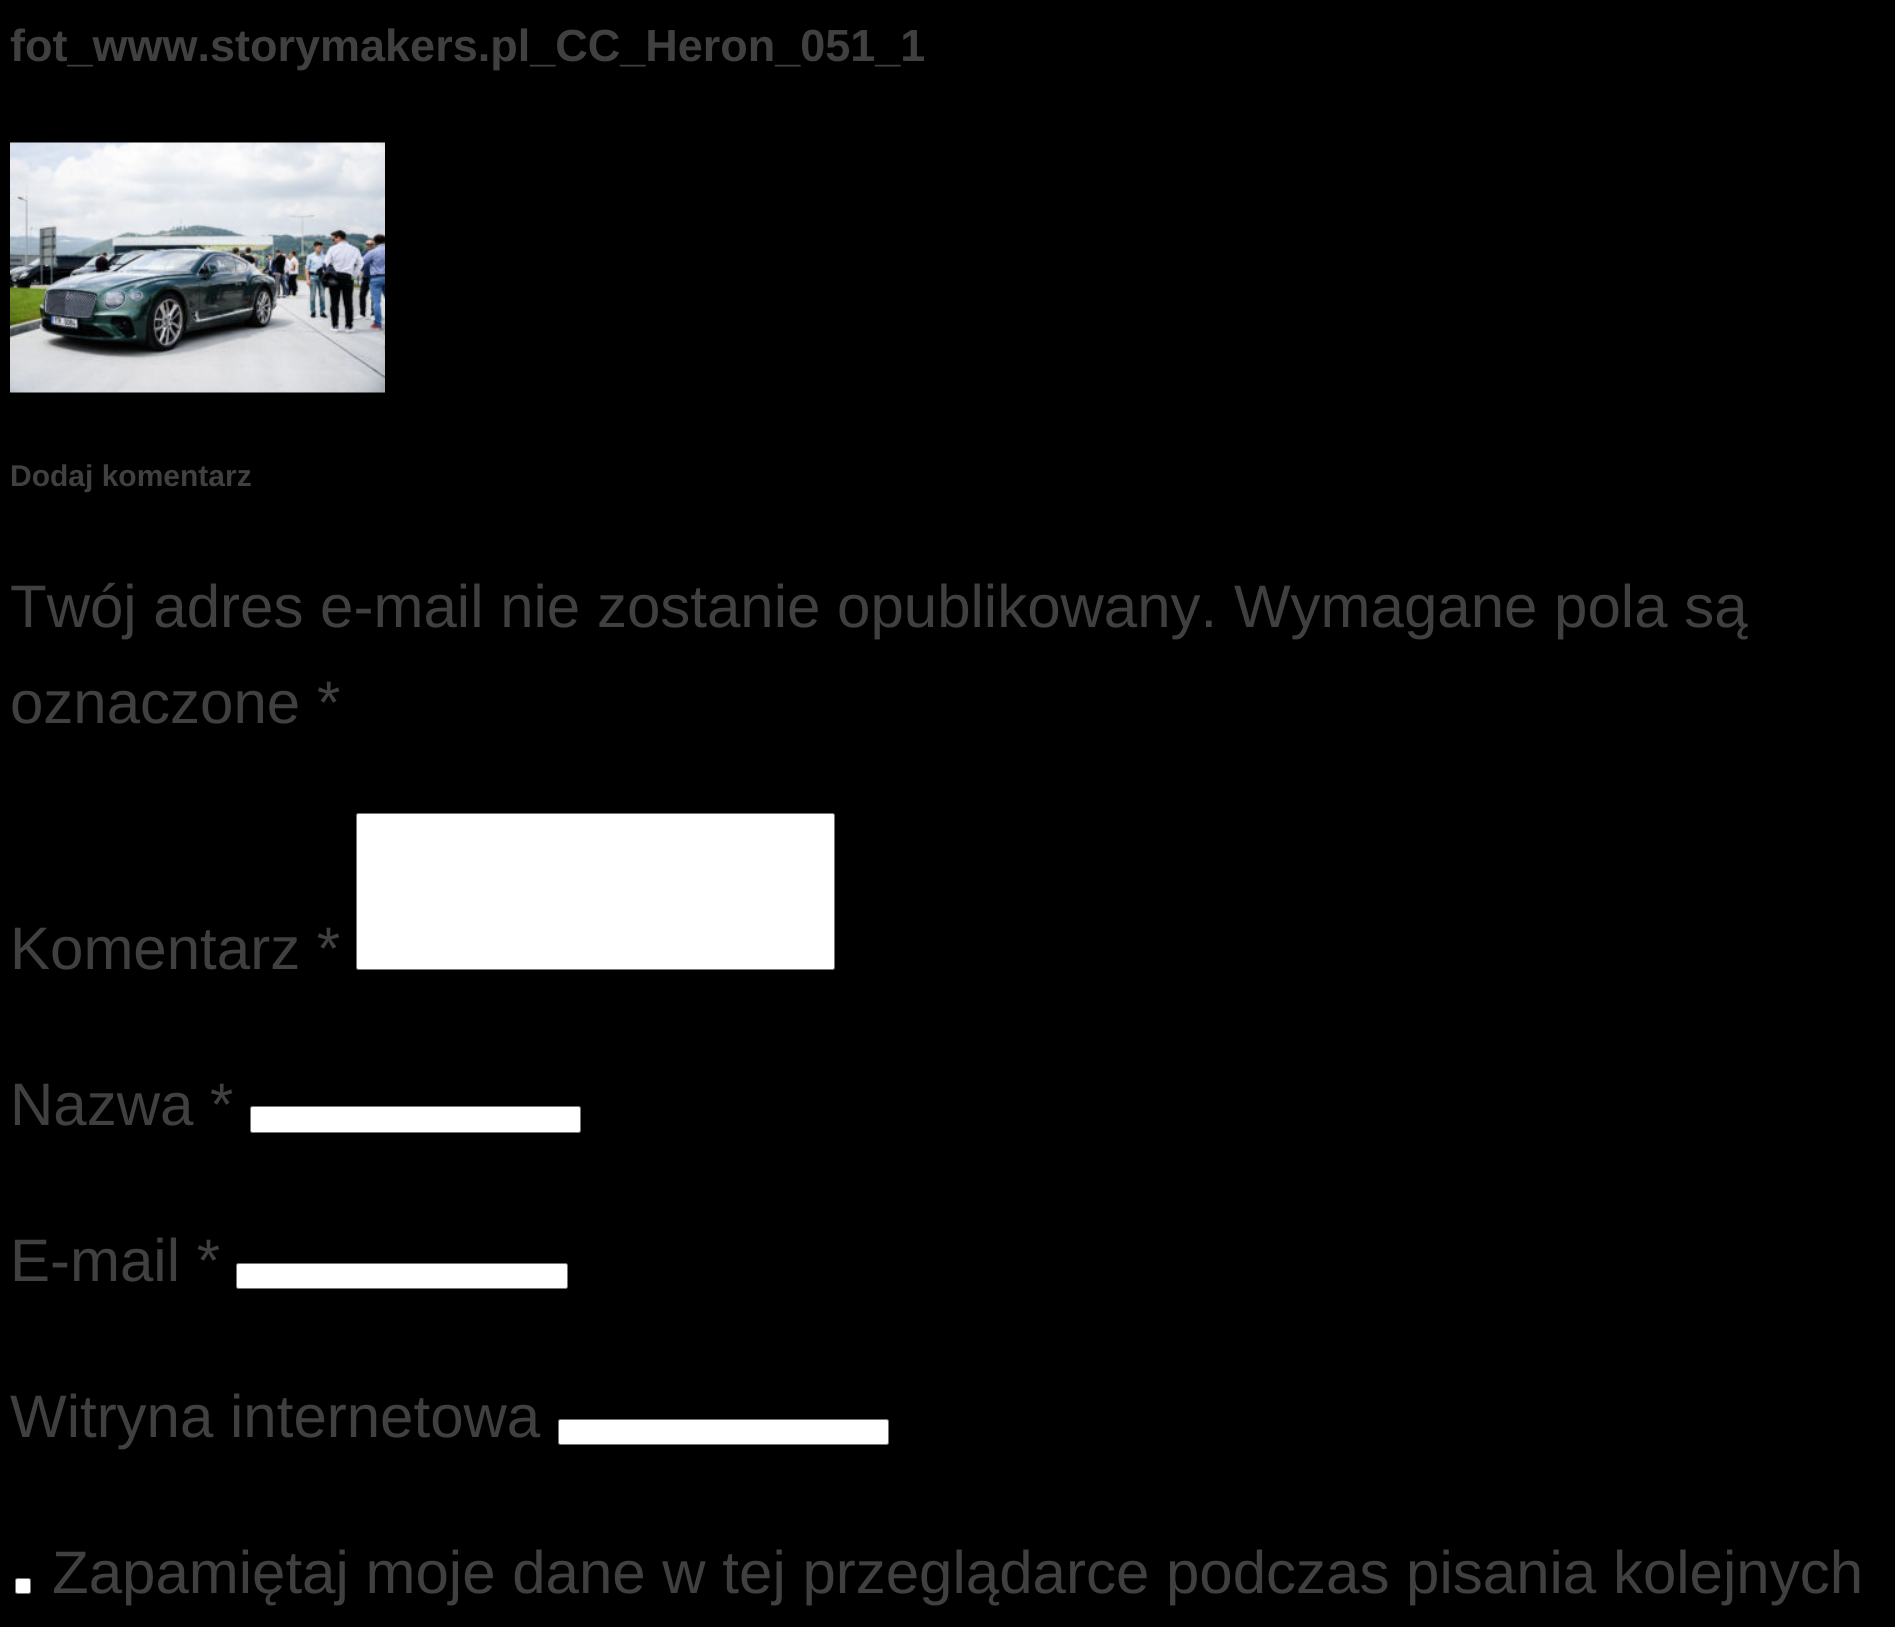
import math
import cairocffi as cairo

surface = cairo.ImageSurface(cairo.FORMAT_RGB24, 1895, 1627)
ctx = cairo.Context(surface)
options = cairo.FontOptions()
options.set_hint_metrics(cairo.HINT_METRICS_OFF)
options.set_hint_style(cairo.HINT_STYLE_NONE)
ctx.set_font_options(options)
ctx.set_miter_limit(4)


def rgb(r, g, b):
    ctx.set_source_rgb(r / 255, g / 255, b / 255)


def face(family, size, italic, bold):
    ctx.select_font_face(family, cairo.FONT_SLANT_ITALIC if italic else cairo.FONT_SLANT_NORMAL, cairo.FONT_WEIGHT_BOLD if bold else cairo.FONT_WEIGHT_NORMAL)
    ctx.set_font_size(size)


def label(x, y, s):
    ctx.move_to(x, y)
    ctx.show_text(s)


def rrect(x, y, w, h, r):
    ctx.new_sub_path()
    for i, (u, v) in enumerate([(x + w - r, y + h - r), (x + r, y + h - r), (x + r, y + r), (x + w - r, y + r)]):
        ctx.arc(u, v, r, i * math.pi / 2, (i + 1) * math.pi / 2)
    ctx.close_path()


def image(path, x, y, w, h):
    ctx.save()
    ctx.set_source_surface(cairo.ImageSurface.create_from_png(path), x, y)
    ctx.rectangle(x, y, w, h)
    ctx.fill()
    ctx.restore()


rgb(0, 0, 0)
ctx.paint()
face('Liberation Sans', 45, 0, 1)
rgb(64, 64, 64)
label(10, 61, 'fot_www.storymakers.pl_CC_Heron_051_1')
image('image0.png', 10, 142, 375, 251)
face('Liberation Sans', 30, 0, 1)
label(10, 486, 'Dodaj komentarz')
face('Liberation Sans', 60, 0, 0)
label(10, 627, 'Twój adres e-mail nie zostanie opublikowany. Wymagane pola są')
label(10, 723, 'oznaczone *')
label(10, 969, 'Komentarz *')
rgb(255, 255, 255)
rrect(356.5, 813.5, 478, 156, 2)
ctx.fill_preserve()
rgb(118, 118, 118)
ctx.set_line_width(1)
ctx.stroke()
rgb(64, 64, 64)
label(10, 1125, 'Nazwa *')
rgb(255, 255, 255)
rrect(250.5, 1106.5, 330, 26, 2)
ctx.fill_preserve()
rgb(118, 118, 118)
ctx.stroke()
rgb(64, 64, 64)
label(10, 1281, 'E-mail *')
rgb(255, 255, 255)
rrect(236.5, 1263.5, 331, 25, 2)
ctx.fill_preserve()
rgb(118, 118, 118)
ctx.stroke()
rgb(64, 64, 64)
label(10, 1437, 'Witryna internetowa')
rgb(255, 255, 255)
rrect(558.5, 1419.5, 330, 25, 2)
ctx.fill_preserve()
rgb(118, 118, 118)
ctx.stroke()
rgb(255, 255, 255)
rrect(15.5, 1578.5, 15, 15, 2)
ctx.fill_preserve()
rgb(118, 118, 118)
ctx.stroke()
rgb(64, 64, 64)
label(52, 1593, 'Zapamiętaj moje dane w tej przeglądarce podczas pisania kolejnych')
surface.write_to_png('render.png')
